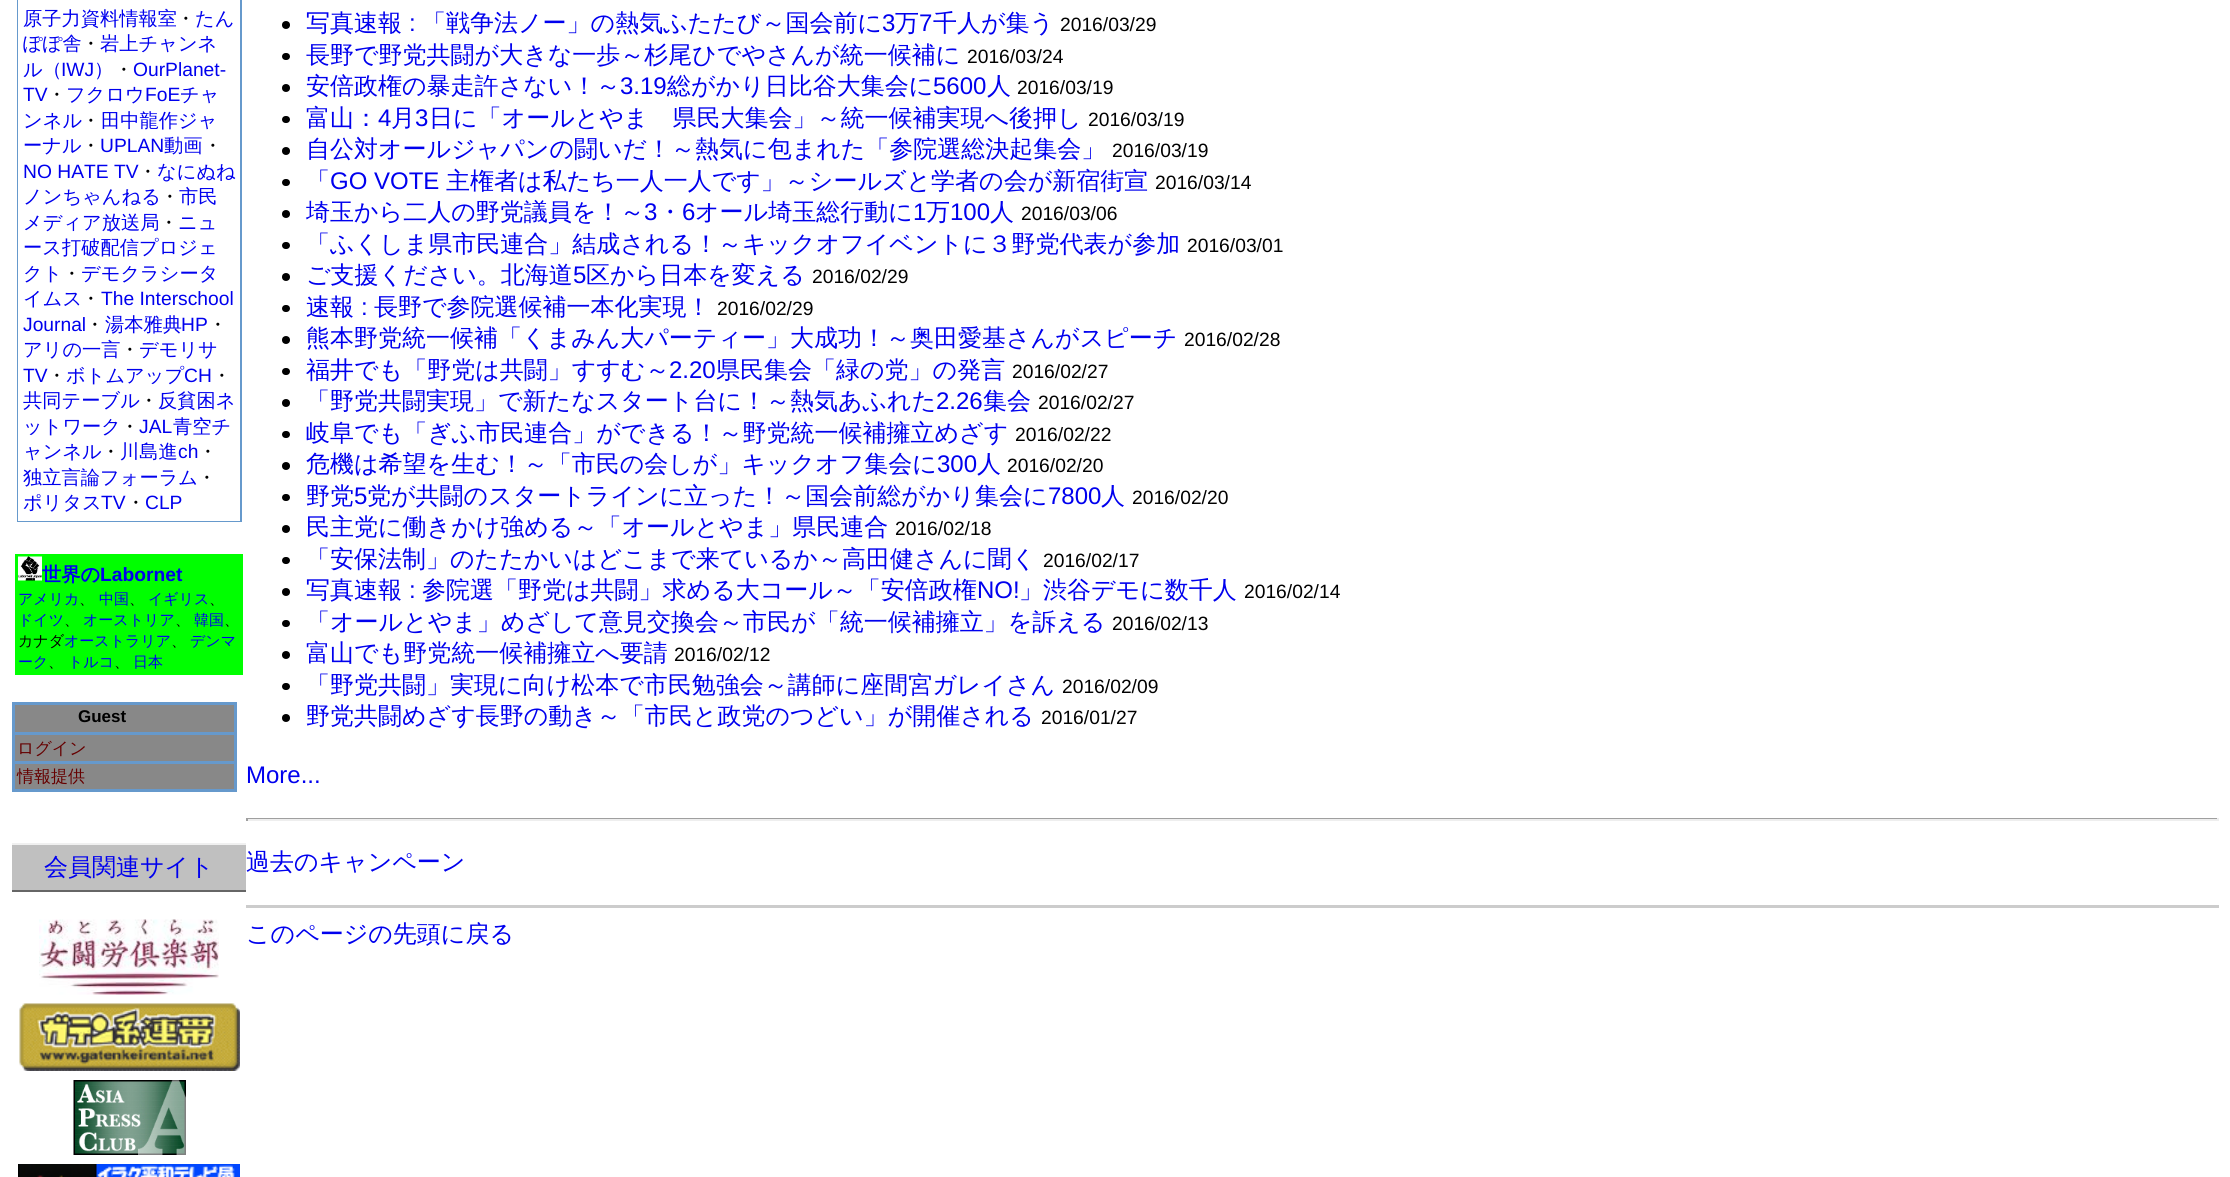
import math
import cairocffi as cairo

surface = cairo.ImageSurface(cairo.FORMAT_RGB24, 2230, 1177)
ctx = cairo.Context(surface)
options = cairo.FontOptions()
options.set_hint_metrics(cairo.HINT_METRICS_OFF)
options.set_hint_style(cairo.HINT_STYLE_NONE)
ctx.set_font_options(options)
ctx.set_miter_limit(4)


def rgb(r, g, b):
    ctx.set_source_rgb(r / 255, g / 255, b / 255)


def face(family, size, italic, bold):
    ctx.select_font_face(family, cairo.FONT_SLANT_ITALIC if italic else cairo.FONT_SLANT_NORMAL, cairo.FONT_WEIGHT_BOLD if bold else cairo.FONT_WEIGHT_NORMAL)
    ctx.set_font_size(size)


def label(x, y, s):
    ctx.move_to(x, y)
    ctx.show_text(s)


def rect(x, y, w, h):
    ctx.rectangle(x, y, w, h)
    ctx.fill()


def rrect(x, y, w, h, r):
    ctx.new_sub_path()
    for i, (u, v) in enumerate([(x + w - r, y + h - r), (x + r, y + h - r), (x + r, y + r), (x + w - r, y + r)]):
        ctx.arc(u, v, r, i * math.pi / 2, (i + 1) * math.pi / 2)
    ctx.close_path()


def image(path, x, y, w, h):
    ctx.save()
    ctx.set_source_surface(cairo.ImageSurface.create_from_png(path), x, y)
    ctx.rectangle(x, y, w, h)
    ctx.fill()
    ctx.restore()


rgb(255, 255, 255)
ctx.paint()
ctx.rectangle(18, -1, 223, 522)
rgb(102, 153, 204)
ctx.stroke()
rgb(255, 255, 255)
rect(18, 0, 222, 521)
face('WenQuanYi Zen Hei Medium', 19.25, 0, 0)
rgb(0, 0, 238)
label(23, 25, '原子力資料情報室')
rgb(0, 0, 0)
label(176, 25, '・')
rgb(0, 0, 238)
label(195, 25, 'たん')
label(23, 50, 'ぽぽ舎')
rgb(0, 0, 0)
label(81, 50, '・')
rgb(0, 0, 238)
label(100, 50, '岩上チャンネ')
label(23, 76, 'ル（')
face('Liberation Sans', 19.25, 0, 0)
label(61, 76, 'IWJ')
face('WenQuanYi Zen Hei Medium', 19.25, 0, 0)
label(94, 76, '）')
rgb(0, 0, 0)
label(114, 76, '・')
face('Liberation Sans', 19.25, 0, 0)
rgb(0, 0, 238)
label(133, 76, 'OurPlanet-')
label(23, 101, 'TV')
face('WenQuanYi Zen Hei Medium', 19.25, 0, 0)
rgb(0, 0, 0)
label(47, 101, '・')
rgb(0, 0, 238)
label(66, 101, 'フクロウ')
face('Liberation Sans', 19.25, 0, 0)
label(145, 101, 'FoE')
face('WenQuanYi Zen Hei Medium', 19.25, 0, 0)
label(180, 101, 'チャ')
label(23, 127, 'ンネル')
rgb(0, 0, 0)
label(81, 127, '・')
rgb(0, 0, 238)
label(101, 127, '田中龍作ジャ')
label(23, 152, 'ーナル')
rgb(0, 0, 0)
label(81, 152, '・')
face('Liberation Sans', 19.25, 0, 0)
rgb(0, 0, 238)
label(100, 152, 'UPLAN')
face('WenQuanYi Zen Hei Medium', 19.25, 0, 0)
label(164, 152, '動画')
rgb(0, 0, 0)
label(203, 152, '・')
face('Liberation Sans', 19.25, 0, 0)
rgb(0, 0, 238)
label(23, 178, 'NO HATE TV')
face('WenQuanYi Zen Hei Medium', 19.25, 0, 0)
rgb(0, 0, 0)
label(138, 178, '・')
rgb(0, 0, 238)
label(157, 178, 'なにぬね')
label(23, 203, 'ノンちゃんねる')
rgb(0, 0, 0)
label(160, 203, '・')
rgb(0, 0, 238)
label(179, 203, '市民')
label(23, 229, 'メディア放送局')
rgb(0, 0, 0)
label(159, 229, '・')
rgb(0, 0, 238)
label(178, 229, 'ニュ')
label(23, 254, 'ース打破配信プロジェ')
label(23, 280, 'クト')
rgb(0, 0, 0)
label(62, 280, '・')
rgb(0, 0, 238)
label(81, 280, 'デモクラシータ')
label(23, 305, 'イムス')
rgb(0, 0, 0)
label(81, 305, '・')
face('Liberation Sans', 19.25, 0, 0)
rgb(0, 0, 238)
label(101, 305, 'The Interschool')
label(23, 331, 'Journal')
face('WenQuanYi Zen Hei Medium', 19.25, 0, 0)
rgb(0, 0, 0)
label(85, 331, '・')
rgb(0, 0, 238)
label(105, 331, '湯本雅典')
face('Liberation Sans', 19.25, 0, 0)
label(181, 331, 'HP')
face('WenQuanYi Zen Hei Medium', 19.25, 0, 0)
rgb(0, 0, 0)
label(208, 331, '・')
rgb(0, 0, 238)
label(23, 356, 'アリの一言')
rgb(0, 0, 0)
label(120, 356, '・')
rgb(0, 0, 238)
label(139, 356, 'デモリサ')
face('Liberation Sans', 19.25, 0, 0)
label(23, 382, 'TV')
face('WenQuanYi Zen Hei Medium', 19.25, 0, 0)
rgb(0, 0, 0)
label(47, 382, '・')
rgb(0, 0, 238)
label(66, 382, 'ボトムアップ')
face('Liberation Sans', 19.25, 0, 0)
label(184, 382, 'CH')
face('WenQuanYi Zen Hei Medium', 19.25, 0, 0)
rgb(0, 0, 0)
label(212, 382, '・')
rgb(0, 0, 238)
label(23, 407, '共同テーブル')
rgb(0, 0, 0)
label(139, 407, '・')
rgb(0, 0, 238)
label(158, 407, '反貧困ネ')
label(23, 433, 'ットワーク')
rgb(0, 0, 0)
label(120, 433, '・')
face('Liberation Sans', 19.25, 0, 0)
rgb(0, 0, 238)
label(139, 433, 'JAL')
face('WenQuanYi Zen Hei Medium', 19.25, 0, 0)
label(173, 433, '青空チ')
label(23, 458, 'ャンネル')
rgb(0, 0, 0)
label(101, 458, '・')
rgb(0, 0, 238)
label(120, 458, '川島進')
face('Liberation Sans', 19.25, 0, 0)
label(178, 458, 'ch')
face('WenQuanYi Zen Hei Medium', 19.25, 0, 0)
rgb(0, 0, 0)
label(198, 458, '・')
rgb(0, 0, 238)
label(23, 484, '独立言論フォーラム')
rgb(0, 0, 0)
label(197, 484, '・')
rgb(0, 0, 238)
label(23, 509, 'ポリタス')
face('Liberation Sans', 19.25, 0, 0)
label(101, 509, 'TV')
face('WenQuanYi Zen Hei Medium', 19.25, 0, 0)
rgb(0, 0, 0)
label(126, 509, '・')
face('Liberation Sans', 19.25, 0, 0)
rgb(0, 0, 238)
label(145, 509, 'CLP')
rgb(0, 255, 0)
rect(15, 554, 228, 121)
image('image0.png', 18, 556, 24, 25)
face('WenQuanYi Zen Hei', 19.25, 0, 1)
rgb(0, 0, 238)
label(42, 581, '世界の')
face('Liberation Sans', 19.25, 0, 1)
label(100, 581, 'Labornet')
face('WenQuanYi Zen Hei Medium', 15, 0, 0)
label(18, 604, 'アメリカ')
rgb(0, 0, 0)
label(79, 604, '、')
rgb(0, 0, 238)
label(99, 604, '中国')
rgb(0, 0, 0)
label(129, 604, '、')
rgb(0, 0, 238)
label(148, 604, 'イギリス')
rgb(0, 0, 0)
label(209, 604, '、')
rgb(0, 0, 238)
label(18, 625, 'ドイツ')
rgb(0, 0, 0)
label(64, 625, '、')
rgb(0, 0, 238)
label(83, 625, 'オーストリア')
rgb(0, 0, 0)
label(175, 625, '、')
rgb(0, 0, 238)
label(194, 625, '韓国')
rgb(0, 0, 0)
label(224, 625, '、')
label(18, 646, 'カナダ')
rgb(0, 0, 238)
label(64, 646, 'オーストラリア')
rgb(0, 0, 0)
label(171, 646, '、')
rgb(0, 0, 238)
label(190, 646, 'デンマ')
label(18, 667, 'ーク')
rgb(0, 0, 0)
label(48, 667, '、')
rgb(0, 0, 238)
label(68, 667, 'トルコ')
rgb(0, 0, 0)
label(114, 667, '、')
rgb(0, 0, 238)
label(133, 667, '日本')
rgb(102, 153, 204)
rect(12, 702, 225, 90)
rgb(136, 136, 136)
rect(15, 705, 219, 27)
face('Liberation Sans', 17, 0, 1)
rgb(0, 0, 0)
label(78, 722, 'Guest')
rgb(136, 136, 136)
rect(15, 735, 219, 26)
face('WenQuanYi Zen Hei Medium', 17, 0, 0)
rgb(102, 0, 0)
label(17, 754, 'ログイン')
rgb(136, 136, 136)
rect(15, 764, 219, 25)
rgb(102, 0, 0)
label(17, 782, '情報提供')
rgb(192, 192, 192)
rect(12, 845, 234, 45)
rgb(240, 240, 240)
rect(12, 843, 234, 2)
rgb(102, 102, 102)
rect(12, 890, 234, 2)
face('WenQuanYi Zen Hei Medium', 24, 0, 0)
rgb(0, 0, 238)
label(44, 875, '会員関連サイト')
image('image1.png', 39, 919, 180, 76)
image('image2.png', 19, 1003, 221, 68)
image('image3.png', 73, 1080, 113, 75)
image('image4.png', 18, 1164, 222, 13)
rgb(0, 0, 0)
ctx.arc(286, 25, 4, 0, 2 * math.pi)
ctx.fill()
rgb(0, 0, 238)
label(306, 31, '写真速報')
face('Liberation Sans', 24, 0, 0)
label(409, 31, ':')
face('WenQuanYi Zen Hei Medium', 24, 0, 0)
label(422, 31, '「戦争法ノー」の熱気ふたたび～国会前に')
face('Liberation Sans', 24, 0, 0)
label(882, 31, '3')
face('WenQuanYi Zen Hei Medium', 24, 0, 0)
label(895, 31, '万')
face('Liberation Sans', 24, 0, 0)
label(919, 31, '7')
face('WenQuanYi Zen Hei Medium', 24, 0, 0)
label(933, 31, '千人が集う')
face('Liberation Sans', 19.25, 0, 0)
rgb(0, 0, 0)
label(1060, 31, '2016/03/29')
rrect(282, 53, 8, 7, 3.5)
ctx.fill()
face('WenQuanYi Zen Hei Medium', 24, 0, 0)
rgb(0, 0, 238)
label(306, 63, '長野で野党共闘が大きな一歩～杉尾ひでやさんが統一候補に')
face('Liberation Sans', 19.25, 0, 0)
rgb(0, 0, 0)
label(967, 63, '2016/03/24')
ctx.new_path()
ctx.arc(286, 88, 4, 0, 2 * math.pi)
ctx.fill()
face('WenQuanYi Zen Hei Medium', 24, 0, 0)
rgb(0, 0, 238)
label(306, 94, '安倍政権の暴走許さない！～')
face('Liberation Sans', 24, 0, 0)
label(620, 94, '3.19')
face('WenQuanYi Zen Hei Medium', 24, 0, 0)
label(667, 94, '総がかり日比谷大集会に')
face('Liberation Sans', 24, 0, 0)
label(933, 94, '5600')
face('WenQuanYi Zen Hei Medium', 24, 0, 0)
label(987, 94, '人')
face('Liberation Sans', 19.25, 0, 0)
rgb(0, 0, 0)
label(1017, 94, '2016/03/19')
rrect(282, 116, 8, 7, 3.5)
ctx.fill()
face('WenQuanYi Zen Hei Medium', 24, 0, 0)
rgb(0, 0, 238)
label(306, 126, '富山：')
face('Liberation Sans', 24, 0, 0)
label(378, 126, '4')
face('WenQuanYi Zen Hei Medium', 24, 0, 0)
label(391, 126, '月')
face('Liberation Sans', 24, 0, 0)
label(415, 126, '3')
face('WenQuanYi Zen Hei Medium', 24, 0, 0)
label(429, 126, '日に「オールとやま　県民大集会」～統一候補実現へ後押し')
face('Liberation Sans', 19.25, 0, 0)
rgb(0, 0, 0)
label(1088, 126, '2016/03/19')
ctx.new_path()
ctx.arc(286, 151, 4, 0, 2 * math.pi)
ctx.fill()
face('WenQuanYi Zen Hei Medium', 24, 0, 0)
rgb(0, 0, 238)
label(306, 157, '自公対オールジャパンの闘いだ！～熱気に包まれた「参院選総決起集会」')
face('Liberation Sans', 19.25, 0, 0)
rgb(0, 0, 0)
label(1112, 157, '2016/03/19')
rrect(282, 179, 8, 7, 3.5)
ctx.fill()
face('WenQuanYi Zen Hei Medium', 24, 0, 0)
rgb(0, 0, 238)
label(306, 189, '「')
face('Liberation Sans', 24, 0, 0)
label(330, 189, 'GO VOTE')
face('WenQuanYi Zen Hei Medium', 24, 0, 0)
label(446, 189, '主権者は私たち一人一人です」～シールズと学者の会が新宿街宣')
face('Liberation Sans', 19.25, 0, 0)
rgb(0, 0, 0)
label(1155, 189, '2016/03/14')
ctx.new_path()
ctx.arc(286, 214, 4, 0, 2 * math.pi)
ctx.fill()
face('WenQuanYi Zen Hei Medium', 24, 0, 0)
rgb(0, 0, 238)
label(306, 220, '埼玉から二人の野党議員を！～')
face('Liberation Sans', 24, 0, 0)
label(644, 220, '3')
face('WenQuanYi Zen Hei Medium', 24, 0, 0)
label(658, 220, '・')
face('Liberation Sans', 24, 0, 0)
label(682, 220, '6')
face('WenQuanYi Zen Hei Medium', 24, 0, 0)
label(695, 220, 'オール埼玉総行動に')
face('Liberation Sans', 24, 0, 0)
label(913, 220, '1')
face('WenQuanYi Zen Hei Medium', 24, 0, 0)
label(926, 220, '万')
face('Liberation Sans', 24, 0, 0)
label(950, 220, '100')
face('WenQuanYi Zen Hei Medium', 24, 0, 0)
label(990, 220, '人')
face('Liberation Sans', 19.25, 0, 0)
rgb(0, 0, 0)
label(1021, 220, '2016/03/06')
rrect(282, 242, 8, 7, 3.5)
ctx.fill()
face('WenQuanYi Zen Hei Medium', 24, 0, 0)
rgb(0, 0, 238)
label(306, 252, '「ふくしま県市民連合」結成される！～キックオフイベントに３野党代表が参加')
face('Liberation Sans', 19.25, 0, 0)
rgb(0, 0, 0)
label(1187, 252, '2016/03/01')
ctx.new_path()
ctx.arc(286, 277, 4, 0, 2 * math.pi)
ctx.fill()
face('WenQuanYi Zen Hei Medium', 24, 0, 0)
rgb(0, 0, 238)
label(306, 283, 'ご支援ください。北海道')
face('Liberation Sans', 24, 0, 0)
label(573, 283, '5')
face('WenQuanYi Zen Hei Medium', 24, 0, 0)
label(586, 283, '区から日本を変える')
face('Liberation Sans', 19.25, 0, 0)
rgb(0, 0, 0)
label(812, 283, '2016/02/29')
rrect(282, 305, 8, 7, 3.5)
ctx.fill()
face('WenQuanYi Zen Hei Medium', 24, 0, 0)
rgb(0, 0, 238)
label(306, 315, '速報')
face('Liberation Sans', 24, 0, 0)
label(361, 315, ':')
face('WenQuanYi Zen Hei Medium', 24, 0, 0)
label(374, 315, '長野で参院選候補一本化実現！')
face('Liberation Sans', 19.25, 0, 0)
rgb(0, 0, 0)
label(717, 315, '2016/02/29')
ctx.new_path()
ctx.arc(286, 340, 4, 0, 2 * math.pi)
ctx.fill()
face('WenQuanYi Zen Hei Medium', 24, 0, 0)
rgb(0, 0, 238)
label(306, 346, '熊本野党統一候補「くまみん大パーティー」大成功！～奥田愛基さんがスピーチ')
face('Liberation Sans', 19.25, 0, 0)
rgb(0, 0, 0)
label(1184, 346, '2016/02/28')
rrect(282, 368, 8, 7, 3.5)
ctx.fill()
face('WenQuanYi Zen Hei Medium', 24, 0, 0)
rgb(0, 0, 238)
label(306, 378, '福井でも「野党は共闘」すすむ～')
face('Liberation Sans', 24, 0, 0)
label(669, 378, '2.20')
face('WenQuanYi Zen Hei Medium', 24, 0, 0)
label(716, 378, '県民集会「緑の党」の発言')
face('Liberation Sans', 19.25, 0, 0)
rgb(0, 0, 0)
label(1012, 378, '2016/02/27')
ctx.new_path()
ctx.arc(286, 403, 4, 0, 2 * math.pi)
ctx.fill()
face('WenQuanYi Zen Hei Medium', 24, 0, 0)
rgb(0, 0, 238)
label(306, 409, '「野党共闘実現」で新たなスタート台に！～熱気あふれた')
face('Liberation Sans', 24, 0, 0)
label(936, 409, '2.26')
face('WenQuanYi Zen Hei Medium', 24, 0, 0)
label(983, 409, '集会')
face('Liberation Sans', 19.25, 0, 0)
rgb(0, 0, 0)
label(1038, 409, '2016/02/27')
rrect(282, 431, 8, 7, 3.5)
ctx.fill()
face('WenQuanYi Zen Hei Medium', 24, 0, 0)
rgb(0, 0, 238)
label(306, 441, '岐阜でも「ぎふ市民連合」ができる！～野党統一候補擁立めざす')
face('Liberation Sans', 19.25, 0, 0)
rgb(0, 0, 0)
label(1015, 441, '2016/02/22')
ctx.new_path()
ctx.arc(286, 466, 4, 0, 2 * math.pi)
ctx.fill()
face('WenQuanYi Zen Hei Medium', 24, 0, 0)
rgb(0, 0, 238)
label(306, 472, '危機は希望を生む！～「市民の会しが」キックオフ集会に')
face('Liberation Sans', 24, 0, 0)
label(937, 472, '300')
face('WenQuanYi Zen Hei Medium', 24, 0, 0)
label(977, 472, '人')
face('Liberation Sans', 19.25, 0, 0)
rgb(0, 0, 0)
label(1007, 472, '2016/02/20')
rrect(282, 494, 8, 7, 3.5)
ctx.fill()
face('WenQuanYi Zen Hei Medium', 24, 0, 0)
rgb(0, 0, 238)
label(306, 504, '野党')
face('Liberation Sans', 24, 0, 0)
label(354, 504, '5')
face('WenQuanYi Zen Hei Medium', 24, 0, 0)
label(367, 504, '党が共闘のスタートラインに立った！～国会前総がかり集会に')
face('Liberation Sans', 24, 0, 0)
label(1048, 504, '7800')
face('WenQuanYi Zen Hei Medium', 24, 0, 0)
label(1101, 504, '人')
face('Liberation Sans', 19.25, 0, 0)
rgb(0, 0, 0)
label(1132, 504, '2016/02/20')
ctx.new_path()
ctx.arc(286, 529, 4, 0, 2 * math.pi)
ctx.fill()
face('WenQuanYi Zen Hei Medium', 24, 0, 0)
rgb(0, 0, 238)
label(306, 535, '民主党に働きかけ強める～「オールとやま」県民連合')
face('Liberation Sans', 19.25, 0, 0)
rgb(0, 0, 0)
label(895, 535, '2016/02/18')
rrect(282, 557, 8, 7, 3.5)
ctx.fill()
face('WenQuanYi Zen Hei Medium', 24, 0, 0)
rgb(0, 0, 238)
label(306, 567, '「安保法制」のたたかいはどこまで来ているか～高田健さんに聞く')
face('Liberation Sans', 19.25, 0, 0)
rgb(0, 0, 0)
label(1043, 567, '2016/02/17')
ctx.new_path()
ctx.arc(286, 592, 4, 0, 2 * math.pi)
ctx.fill()
face('WenQuanYi Zen Hei Medium', 24, 0, 0)
rgb(0, 0, 238)
label(306, 598, '写真速報')
face('Liberation Sans', 24, 0, 0)
label(409, 598, ':')
face('WenQuanYi Zen Hei Medium', 24, 0, 0)
label(422, 598, '参院選「野党は共闘」求める大コール～「安倍政権')
face('Liberation Sans', 24, 0, 0)
label(977, 598, 'NO!')
face('WenQuanYi Zen Hei Medium', 24, 0, 0)
label(1019, 598, '」渋谷デモに数千人')
face('Liberation Sans', 19.25, 0, 0)
rgb(0, 0, 0)
label(1244, 598, '2016/02/14')
rrect(282, 620, 8, 7, 3.5)
ctx.fill()
face('WenQuanYi Zen Hei Medium', 24, 0, 0)
rgb(0, 0, 238)
label(306, 630, '「オールとやま」めざして意見交換会～市民が「統一候補擁立」を訴える')
face('Liberation Sans', 19.25, 0, 0)
rgb(0, 0, 0)
label(1112, 630, '2016/02/13')
ctx.new_path()
ctx.arc(286, 655, 4, 0, 2 * math.pi)
ctx.fill()
face('WenQuanYi Zen Hei Medium', 24, 0, 0)
rgb(0, 0, 238)
label(306, 661, '富山でも野党統一候補擁立へ要請')
face('Liberation Sans', 19.25, 0, 0)
rgb(0, 0, 0)
label(674, 661, '2016/02/12')
rrect(282, 683, 8, 7, 3.5)
ctx.fill()
face('WenQuanYi Zen Hei Medium', 24, 0, 0)
rgb(0, 0, 238)
label(306, 693, '「野党共闘」実現に向け松本で市民勉強会～講師に座間宮ガレイさん')
face('Liberation Sans', 19.25, 0, 0)
rgb(0, 0, 0)
label(1062, 693, '2016/02/09')
ctx.new_path()
ctx.arc(286, 718, 4, 0, 2 * math.pi)
ctx.fill()
face('WenQuanYi Zen Hei Medium', 24, 0, 0)
rgb(0, 0, 238)
label(306, 724, '野党共闘めざす長野の動き～「市民と政党のつどい」が開催される')
face('Liberation Sans', 19.25, 0, 0)
rgb(0, 0, 0)
label(1041, 724, '2016/01/27')
face('Liberation Sans', 24, 0, 0)
rgb(0, 0, 238)
label(246, 783, 'More...')
rgb(159, 159, 159)
rect(246, 818, 1973, 1)
rgb(238, 238, 238)
rect(2217, 818, 2, 3)
rect(246, 819, 1973, 2)
rgb(159, 159, 159)
rect(246, 818, 2, 3)
face('WenQuanYi Zen Hei Medium', 24, 0, 0)
rgb(0, 0, 238)
label(246, 870, '過去のキャンペーン')
rgb(204, 204, 204)
rect(246, 905, 1973, 3)
rgb(0, 0, 238)
label(246, 942, 'このページの先頭に戻る')
surface.write_to_png('render.png')
